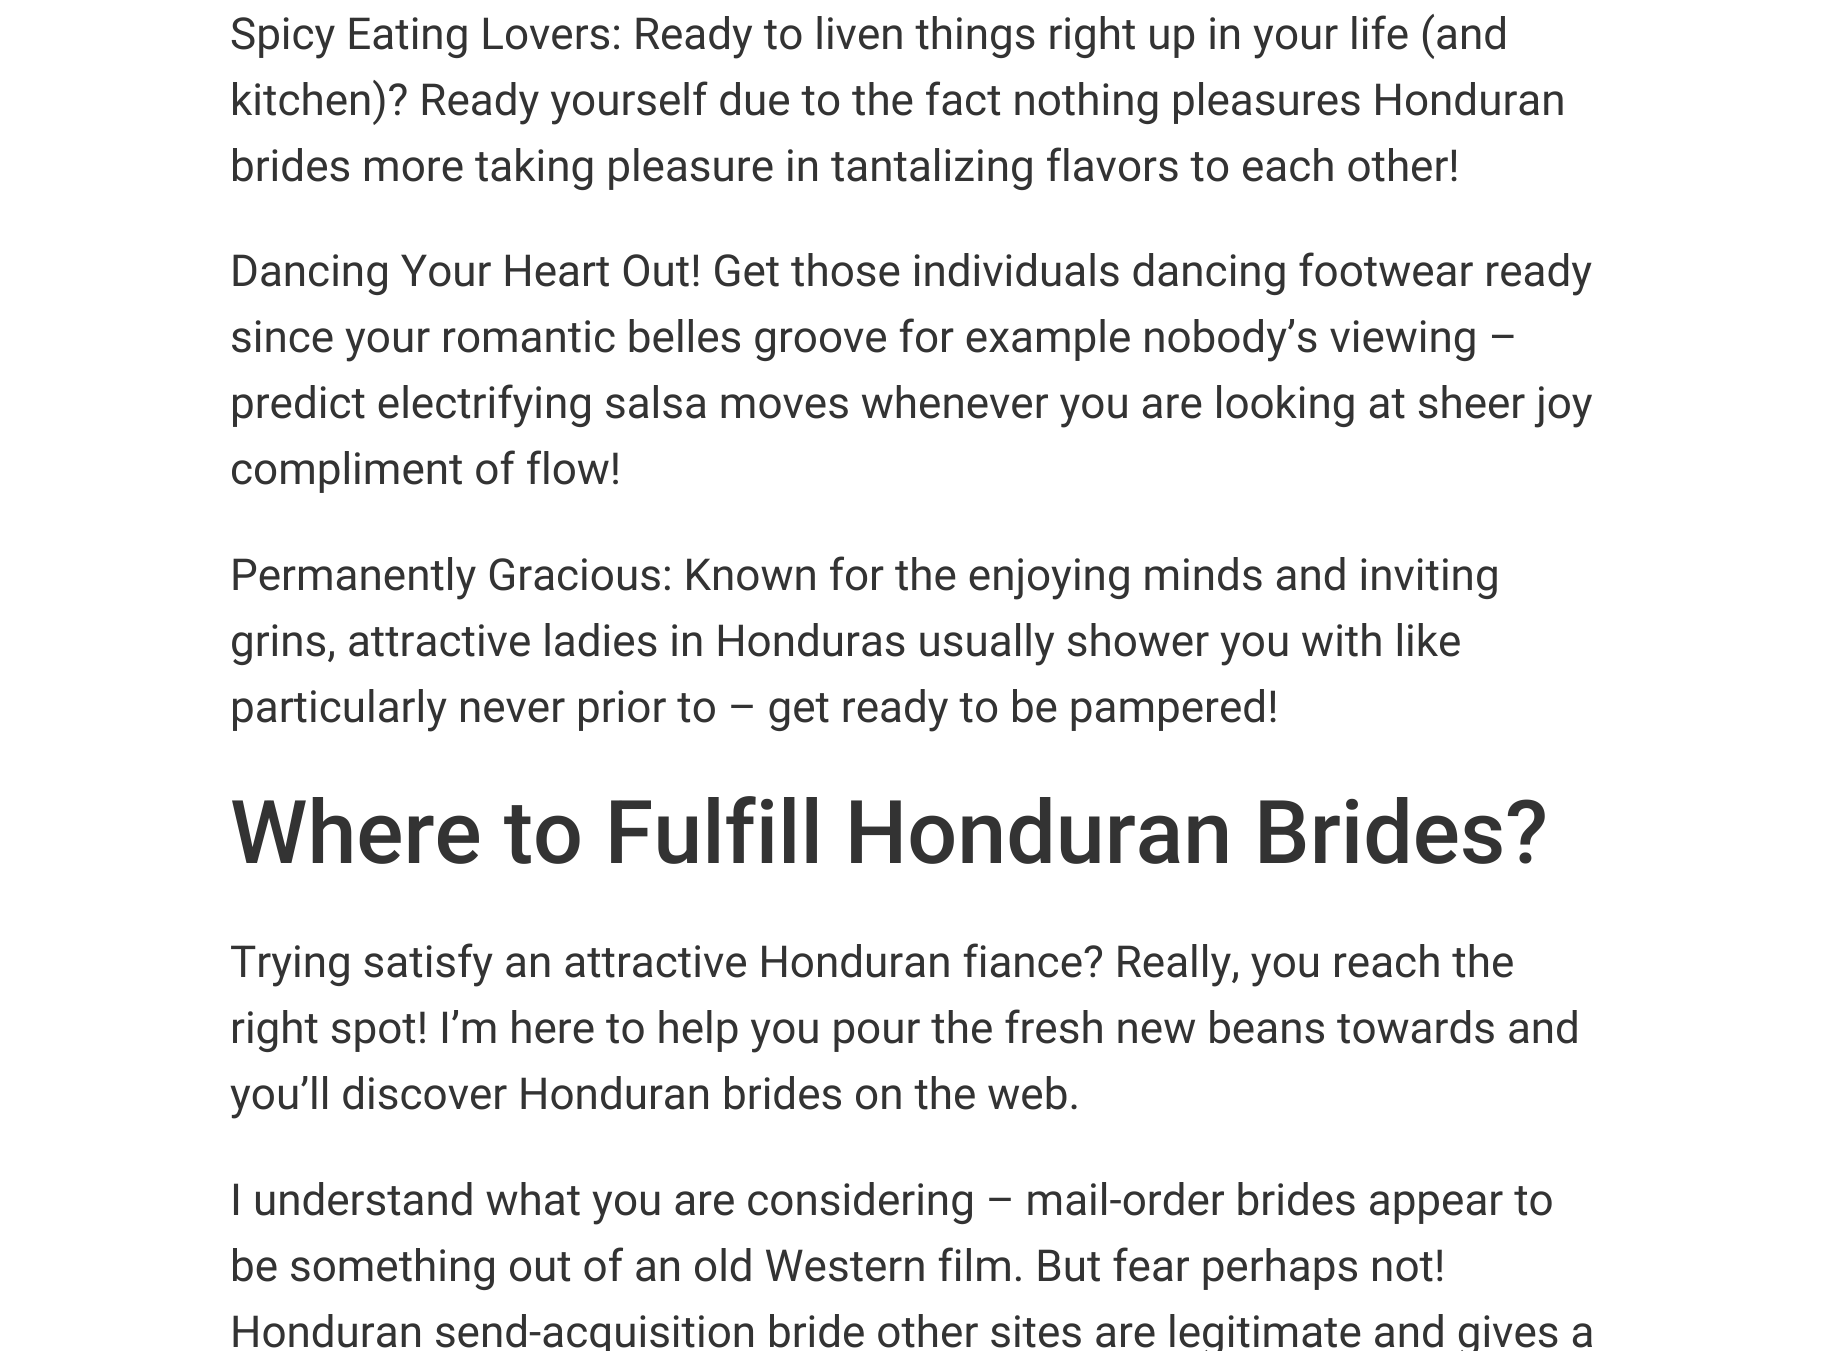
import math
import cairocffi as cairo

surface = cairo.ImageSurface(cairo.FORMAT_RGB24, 1834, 1351)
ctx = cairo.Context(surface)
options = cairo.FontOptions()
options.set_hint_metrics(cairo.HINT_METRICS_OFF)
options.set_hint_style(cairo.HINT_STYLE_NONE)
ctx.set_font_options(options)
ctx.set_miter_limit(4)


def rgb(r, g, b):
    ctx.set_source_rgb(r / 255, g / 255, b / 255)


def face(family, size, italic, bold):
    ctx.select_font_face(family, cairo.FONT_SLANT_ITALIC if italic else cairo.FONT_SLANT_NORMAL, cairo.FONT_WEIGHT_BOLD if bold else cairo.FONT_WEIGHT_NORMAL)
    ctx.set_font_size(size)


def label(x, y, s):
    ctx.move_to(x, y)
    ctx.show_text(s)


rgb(255, 255, 255)
ctx.paint()
face('Roboto', 44, 0, 0)
rgb(51, 51, 51)
label(230, 49, 'Spicy Eating Lovers: Ready to liven things right up in your life (and')
label(230, 115, 'kitchen)? Ready yourself due to the fact nothing pleasures Honduran')
label(230, 181, 'brides more taking pleasure in tantalizing flavors to each other!')
label(230, 286, 'Dancing Your Heart Out! Get those individuals dancing footwear ready')
label(230, 352, 'since your romantic belles groove for example nobody’s viewing –')
label(230, 418, 'predict electrifying salsa moves whenever you are looking at sheer joy')
label(230, 484, 'compliment of flow!')
label(230, 590, 'Permanently Gracious: Known for the enjoying minds and inviting')
label(230, 656, 'grins, attractive ladies in Honduras usually shower you with like')
label(230, 722, 'particularly never prior to – get ready to be pampered!')
face('Roboto Medium', 88, 0, 0)
label(230, 863, 'Where to Fulfill Honduran Brides?')
face('Roboto', 44, 0, 0)
label(230, 977, 'Trying satisfy an attractive Honduran fiance? Really, you reach the')
label(230, 1043, 'right spot! I’m here to help you pour the fresh new beans towards and')
label(230, 1109, 'you’ll discover Honduran brides on the web.')
label(230, 1215, 'I understand what you are considering – mail-order brides appear to')
label(230, 1281, 'be something out of an old Western film. But fear perhaps not!')
label(230, 1347, 'Honduran send-acquisition bride other sites are legitimate and gives a')
surface.write_to_png('render.png')
